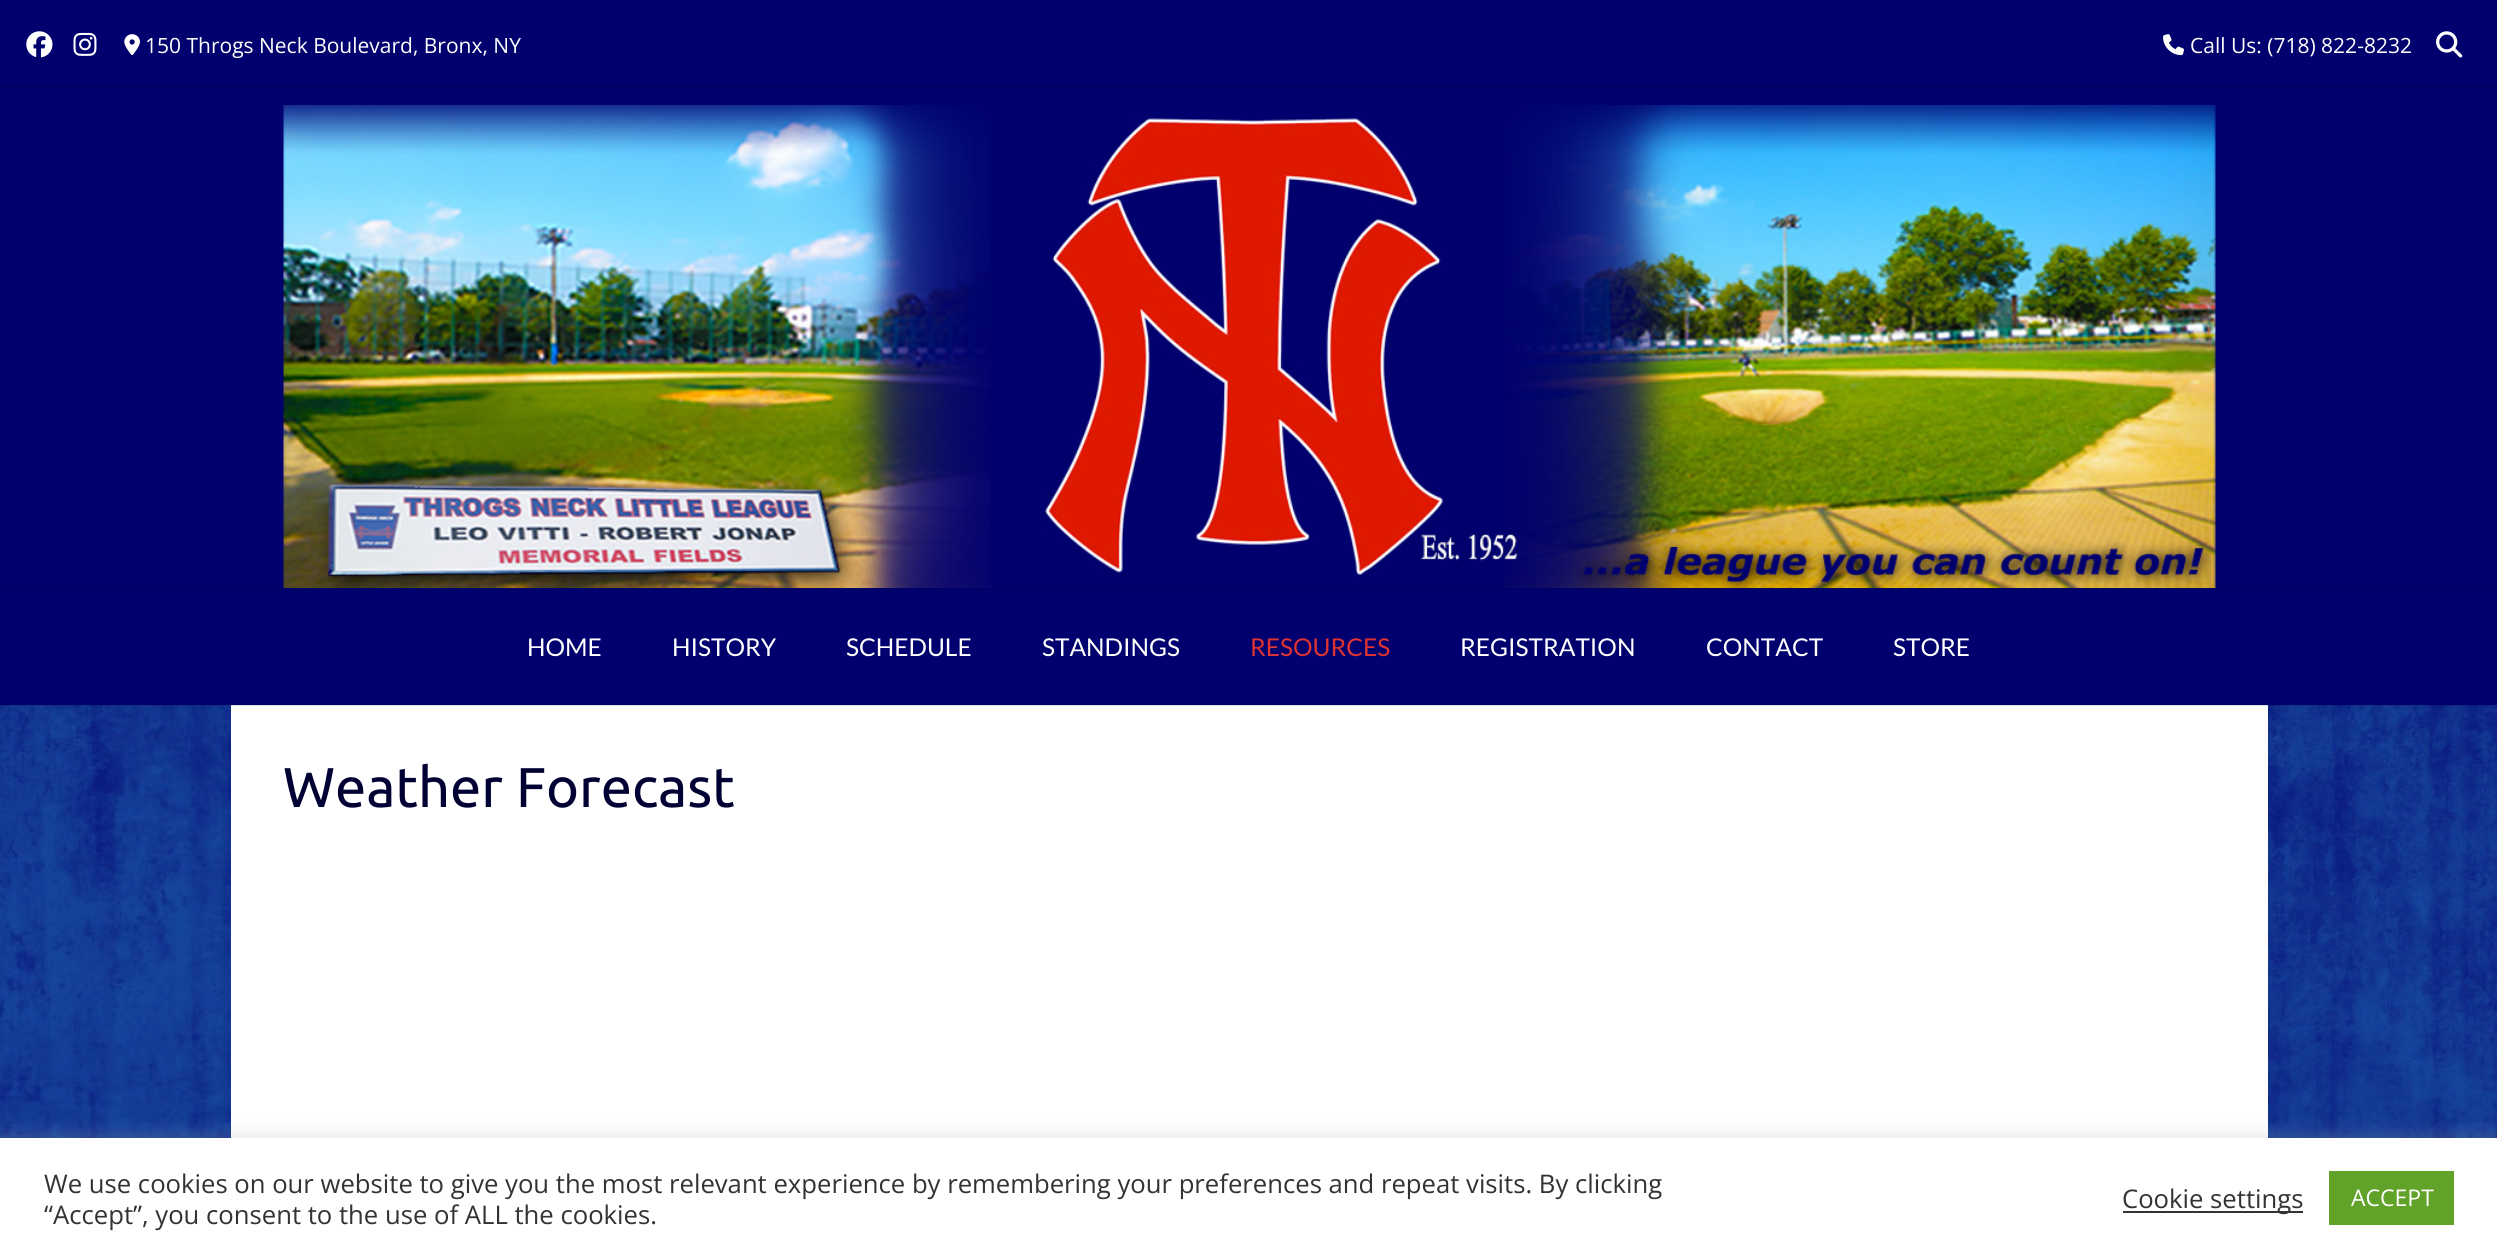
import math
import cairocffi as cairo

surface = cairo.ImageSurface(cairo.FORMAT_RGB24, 2497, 1258)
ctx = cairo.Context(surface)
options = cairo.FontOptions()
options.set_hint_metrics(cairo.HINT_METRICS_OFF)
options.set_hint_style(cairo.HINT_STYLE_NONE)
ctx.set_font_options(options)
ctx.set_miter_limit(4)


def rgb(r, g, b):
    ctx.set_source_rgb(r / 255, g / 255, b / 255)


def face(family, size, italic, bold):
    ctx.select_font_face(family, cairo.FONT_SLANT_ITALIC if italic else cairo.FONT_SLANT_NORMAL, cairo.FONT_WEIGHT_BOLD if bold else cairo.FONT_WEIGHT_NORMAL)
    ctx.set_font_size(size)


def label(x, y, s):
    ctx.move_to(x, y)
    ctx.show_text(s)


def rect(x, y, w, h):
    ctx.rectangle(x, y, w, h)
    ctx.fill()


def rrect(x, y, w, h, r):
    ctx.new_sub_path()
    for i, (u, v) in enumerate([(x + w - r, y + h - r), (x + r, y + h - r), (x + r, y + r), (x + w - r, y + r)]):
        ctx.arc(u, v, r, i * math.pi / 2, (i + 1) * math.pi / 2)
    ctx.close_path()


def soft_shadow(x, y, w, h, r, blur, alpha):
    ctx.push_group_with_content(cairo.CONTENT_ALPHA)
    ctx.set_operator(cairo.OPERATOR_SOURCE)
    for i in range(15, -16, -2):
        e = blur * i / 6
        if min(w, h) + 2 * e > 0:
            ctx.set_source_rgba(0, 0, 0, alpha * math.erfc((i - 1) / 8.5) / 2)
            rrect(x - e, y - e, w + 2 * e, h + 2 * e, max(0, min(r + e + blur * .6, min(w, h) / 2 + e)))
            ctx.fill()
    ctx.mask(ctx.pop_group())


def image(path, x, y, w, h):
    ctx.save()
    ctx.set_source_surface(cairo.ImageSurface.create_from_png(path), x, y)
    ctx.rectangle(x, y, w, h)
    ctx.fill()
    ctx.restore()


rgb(255, 255, 255)
ctx.paint()
image('image0.png', 0, 705, 2497, 433)
rgb(0, 0, 110)
rect(0, 0, 2497, 588)
rgb(255, 255, 255)
rect(231, 705, 2037, 433)
ctx.set_source_rgba(0, 0, 0, 0.14)
rect(0, 705, 2497, 1)
rgb(0, 0, 101)
rect(0, 86, 2497, 2)
image('image1.png', 26, 31, 27, 27)
image('image2.png', 73, 32, 24, 24)
image('image3.png', 124, 34, 16, 22)
face('Open Sans', 21, 0, 0)
rgb(255, 255, 255)
label(145, 53, '150 Throgs Neck Boulevard, Bronx, NY')
image('image4.png', 2163, 34, 21, 22)
label(2190, 53, 'Call Us: (718) 822-8232')
image('image5.png', 2436, 31, 27, 27)
image('image6.png', 283, 105, 1933, 483)
rgb(0, 0, 110)
rect(0, 590, 2497, 115)
rgb(0, 0, 101)
rect(0, 588, 2497, 2)
face('Lato', 24.5, 0, 0)
rgb(255, 255, 255)
label(527, 656, 'HOME')
label(672, 656, 'HISTORY')
label(846, 656, 'SCHEDULE')
label(1042, 656, 'STANDINGS')
rgb(221, 51, 51)
label(1250, 656, 'RESOURCES')
rgb(255, 255, 255)
label(1460, 656, 'REGISTRATION')
label(1706, 656, 'CONTACT')
label(1893, 656, 'STORE')
face('Ubuntu', 56, 0, 0)
rgb(0, 0, 51)
label(283, 807, 'Weather Forecast')
rgb(172, 171, 171)
soft_shadow(0, 1136, 2497, 121, 0, 9, 0.3)
rgb(255, 255, 255)
rect(0, 1138, 2497, 120)
face('Open Sans', 25.67, 0, 0)
rgb(51, 51, 51)
label(44, 1193, 'We use cookies on our website to give you the most relevant experience by remembering your preferences and repeat visits. By clicking')
label(44, 1224, '“Accept”, you consent to the use of ALL the cookies.')
rect(2123, 1211, 180, 2)
label(2122, 1208, 'Cookie settings')
rgb(97, 162, 41)
rect(2329, 1171, 125, 54)
face('Open Sans', 23, 0, 0)
rgb(255, 255, 255)
label(2351, 1206, 'ACCEPT')
surface.write_to_png('render.png')
